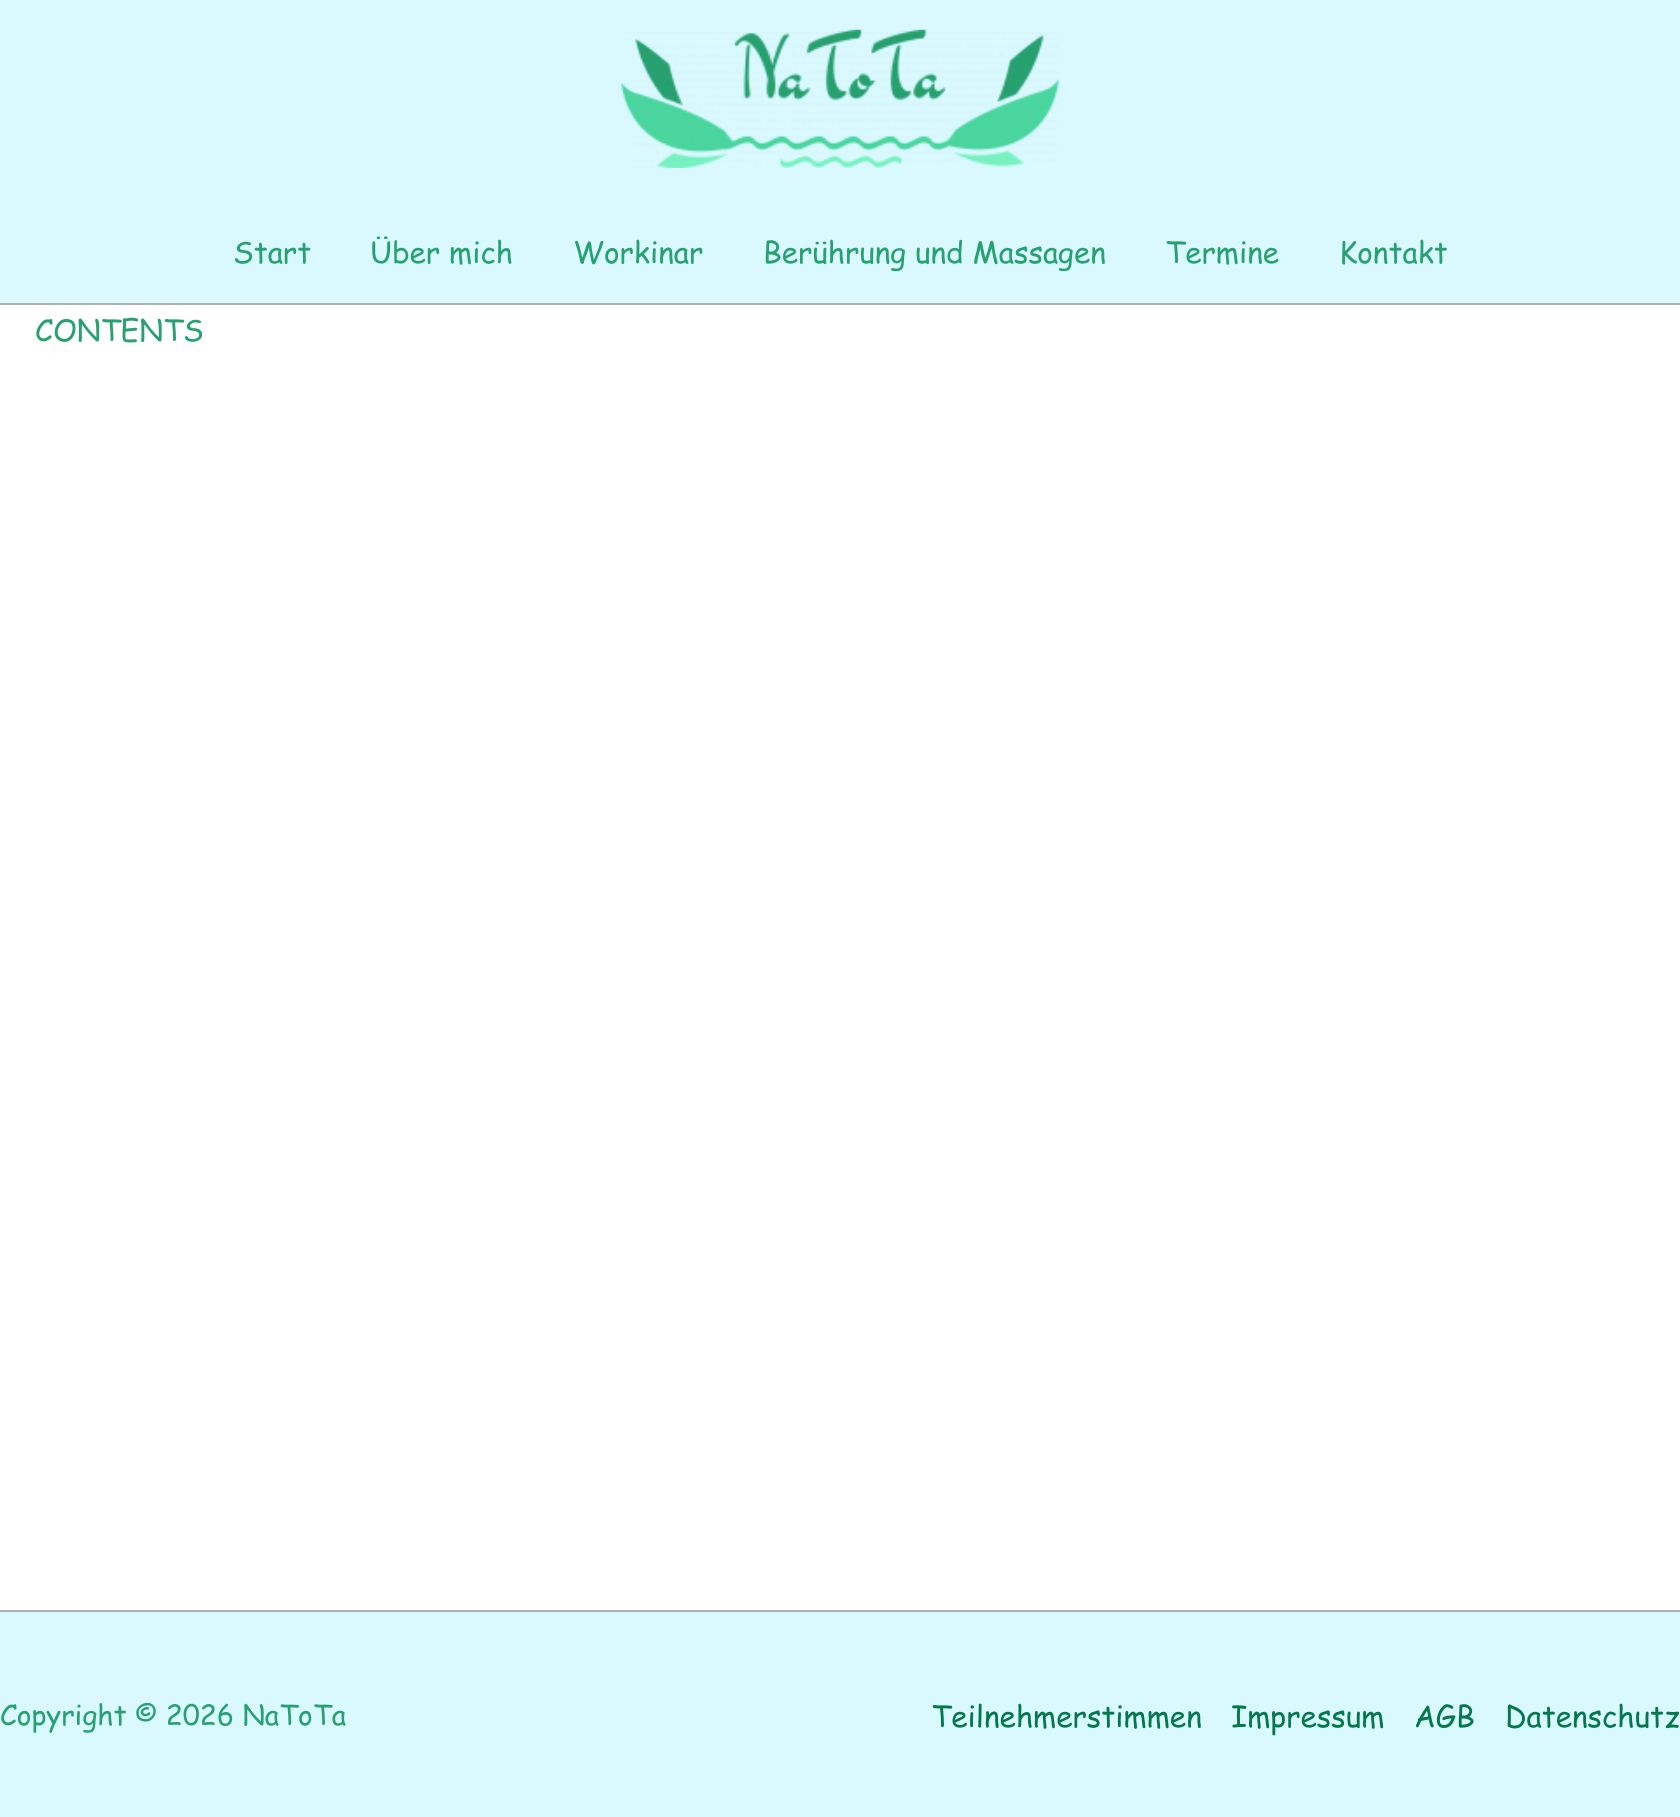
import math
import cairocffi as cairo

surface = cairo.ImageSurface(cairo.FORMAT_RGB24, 1680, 1817)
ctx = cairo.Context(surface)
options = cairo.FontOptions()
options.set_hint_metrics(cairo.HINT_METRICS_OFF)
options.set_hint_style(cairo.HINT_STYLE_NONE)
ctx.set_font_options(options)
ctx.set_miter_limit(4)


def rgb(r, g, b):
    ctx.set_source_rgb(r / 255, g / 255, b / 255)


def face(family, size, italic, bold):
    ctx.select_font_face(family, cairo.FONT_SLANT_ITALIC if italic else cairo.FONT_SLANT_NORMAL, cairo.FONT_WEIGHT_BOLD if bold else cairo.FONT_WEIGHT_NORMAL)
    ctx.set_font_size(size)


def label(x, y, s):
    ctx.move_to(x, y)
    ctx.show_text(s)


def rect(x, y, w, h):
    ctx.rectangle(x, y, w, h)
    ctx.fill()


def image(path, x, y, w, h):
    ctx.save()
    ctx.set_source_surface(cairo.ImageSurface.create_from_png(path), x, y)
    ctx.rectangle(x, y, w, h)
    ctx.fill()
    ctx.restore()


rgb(255, 255, 255)
ctx.paint()
rgb(217, 249, 255)
rect(0, 0, 1680, 303)
image('image0.png', 621, 29, 438, 139)
rgb(175, 175, 175)
rect(0, 303, 1680, 2)
face('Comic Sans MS', 29.75, 0, 0)
rgb(40, 161, 112)
label(233, 263, 'Start')
label(370, 263, 'Über mich')
label(573, 263, 'Workinar')
label(763, 263, 'Berührung und Massagen')
label(1165, 263, 'Termine')
label(1339, 263, 'Kontakt')
label(35, 341, 'CONTENTS')
rgb(217, 249, 255)
rect(0, 1612, 1680, 205)
rgb(175, 175, 175)
rect(0, 1610, 1680, 2)
face('Comic Sans MS', 28, 0, 0)
rgb(40, 161, 112)
label(0, 1725, 'Copyright © 2026 NaToTa')
face('Comic Sans MS', 29.75, 0, 0)
rgb(4, 120, 74)
label(931, 1727, 'Teilnehmerstimmen')
label(1231, 1727, 'Impressum')
label(1414, 1727, 'AGB')
label(1505, 1727, 'Datenschutz')
surface.write_to_png('render.png')
